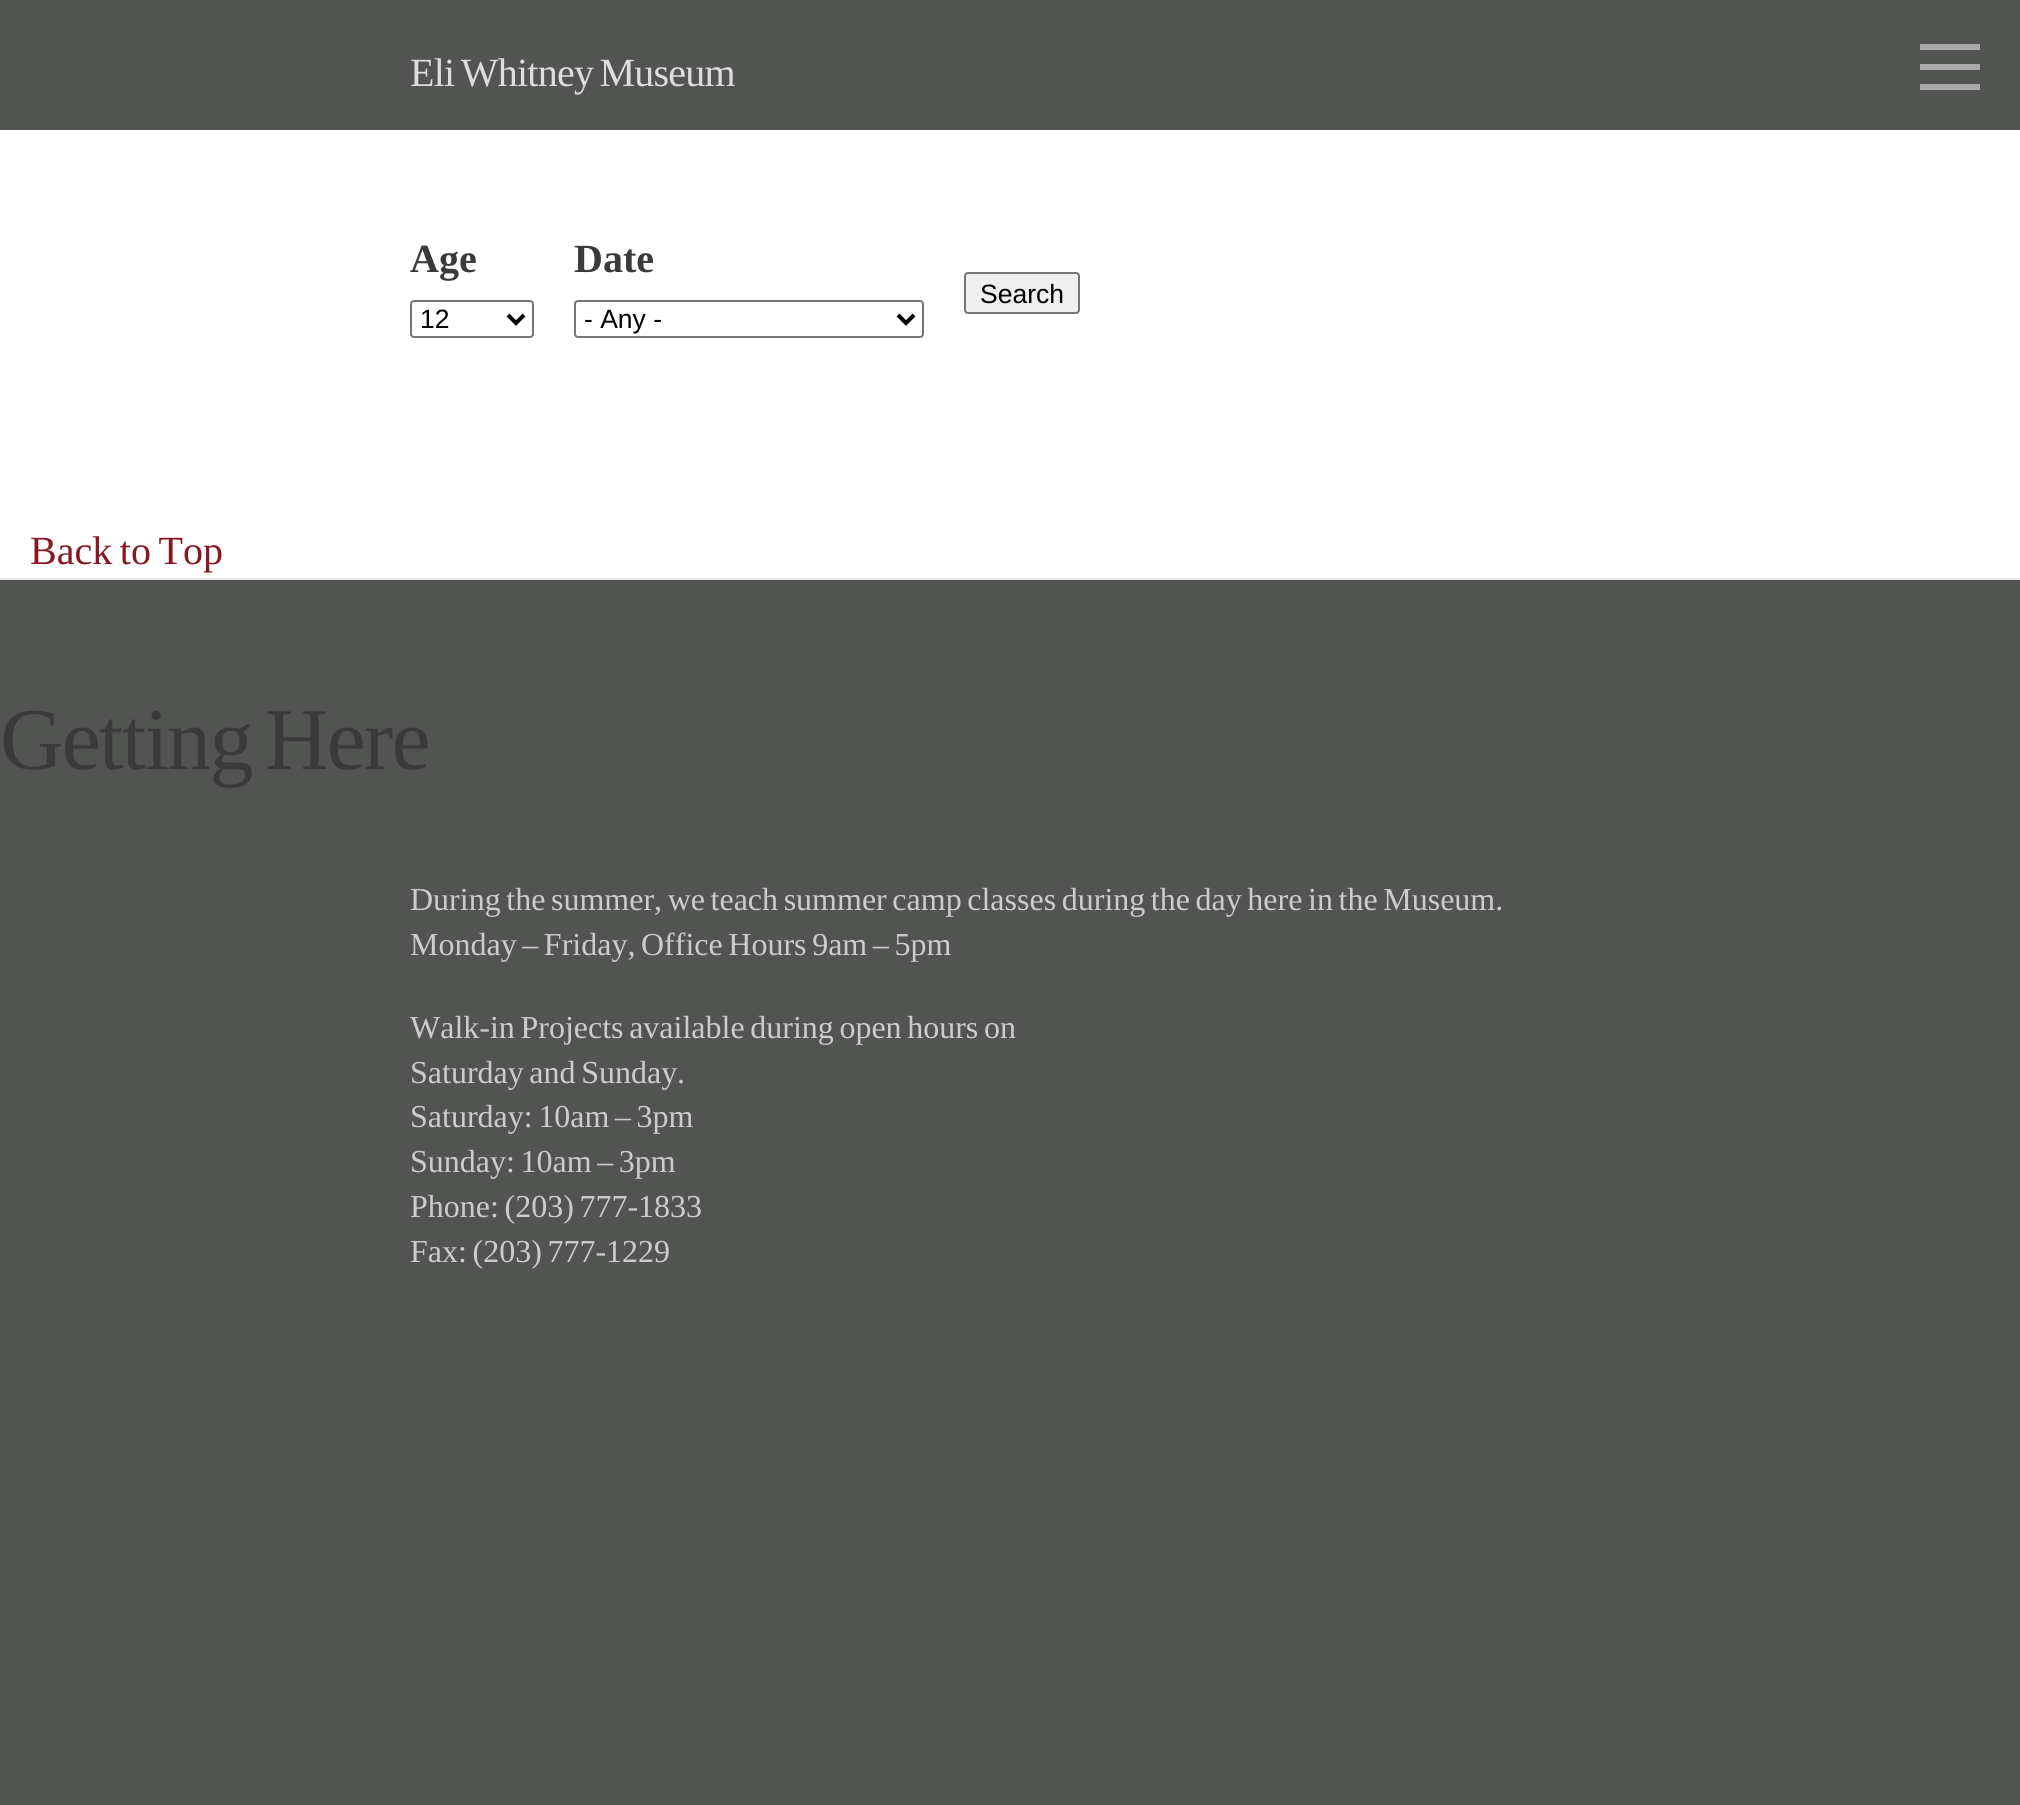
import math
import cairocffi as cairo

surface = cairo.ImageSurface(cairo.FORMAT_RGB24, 2020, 1805)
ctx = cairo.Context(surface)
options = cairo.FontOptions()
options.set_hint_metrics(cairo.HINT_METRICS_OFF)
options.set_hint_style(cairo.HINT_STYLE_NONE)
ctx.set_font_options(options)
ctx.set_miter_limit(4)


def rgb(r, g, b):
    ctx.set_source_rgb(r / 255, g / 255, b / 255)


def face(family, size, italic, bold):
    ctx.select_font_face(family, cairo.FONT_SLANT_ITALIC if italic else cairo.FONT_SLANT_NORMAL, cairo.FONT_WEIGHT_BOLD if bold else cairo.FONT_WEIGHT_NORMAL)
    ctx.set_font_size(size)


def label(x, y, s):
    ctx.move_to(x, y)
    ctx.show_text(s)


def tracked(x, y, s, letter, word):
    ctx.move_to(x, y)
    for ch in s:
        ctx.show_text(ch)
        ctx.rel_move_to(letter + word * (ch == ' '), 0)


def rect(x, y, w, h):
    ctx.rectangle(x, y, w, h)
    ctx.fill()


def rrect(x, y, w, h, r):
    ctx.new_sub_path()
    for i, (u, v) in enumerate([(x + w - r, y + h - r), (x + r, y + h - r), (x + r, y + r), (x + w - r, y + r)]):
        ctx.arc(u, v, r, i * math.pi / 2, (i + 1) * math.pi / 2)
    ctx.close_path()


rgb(255, 255, 255)
ctx.paint()
rgb(82, 84, 82)
rect(0, 0, 2020, 130)
face('Liberation Serif', 40, 0, 0)
rgb(221, 221, 221)
tracked(410, 86, 'Eli Whitney Museum', -0.75, -3)
rgb(170, 170, 170)
rect(1920, 44, 60, 6)
rect(1920, 64, 60, 6)
rect(1920, 84, 60, 6)
face('Liberation Serif', 40, 0, 1)
rgb(58, 58, 58)
label(410, 272, 'Age')
rrect(411, 301, 122, 36, 3)
rgb(118, 118, 118)
ctx.stroke()
ctx.new_path()
ctx.move_to(508, 315)
ctx.line_to(516, 323)
ctx.line_to(524, 315)
rgb(0, 0, 0)
ctx.set_line_width(4)
ctx.stroke()
face('Liberation Sans', 26.5, 0, 0)
label(420, 328, '12')
face('Liberation Serif', 40, 0, 1)
rgb(58, 58, 58)
label(574, 272, 'Date')
rrect(575, 301, 348, 36, 3)
rgb(118, 118, 118)
ctx.set_line_width(2)
ctx.stroke()
ctx.new_path()
ctx.move_to(898, 315)
ctx.line_to(906, 323)
ctx.line_to(914, 315)
rgb(0, 0, 0)
ctx.set_line_width(4)
ctx.stroke()
face('Liberation Sans', 26.5, 0, 0)
label(584, 328, '- Any -')
rgb(239, 239, 239)
rrect(965, 273, 114, 40, 3)
ctx.fill_preserve()
rgb(118, 118, 118)
ctx.set_line_width(2)
ctx.stroke()
rgb(0, 0, 0)
label(980, 303, 'Search')
face('Liberation Serif', 40, 0, 0)
rgb(135, 23, 33)
tracked(30, 564, 'Back to Top', 0, -2.4)
rgb(82, 84, 82)
rect(0, 580, 2020, 1225)
rgb(230, 230, 230)
rect(0, 578, 2020, 2)
face('Liberation Serif', 88, 0, 0)
rgb(58, 58, 58)
tracked(0, 769, 'Getting Here', -1.75, -7)
face('Liberation Serif', 32, 0, 0)
rgb(204, 204, 204)
tracked(410, 910, 'During the summer, we teach summer camp classes during the day here in the Museum.', 0, -2.4)
tracked(410, 955, 'Monday – Friday, Office Hours 9am – 5pm', 0, -2.4)
tracked(410, 1038, 'Walk-in Projects available during open hours on', 0, -2.4)
tracked(410, 1083, 'Saturday and Sunday', 0, -2.4)
label(677, 1083, '.')
tracked(410, 1127, 'Saturday: 10am – 3pm', 0, -2.4)
tracked(410, 1172, 'Sunday: 10am – 3pm', 0, -2.4)
tracked(410, 1217, 'Phone: (203) 777-1833', 0, -2.4)
tracked(410, 1262, 'Fax: (203) 777-1229', 0, -2.4)
surface.write_to_png('render.png')
